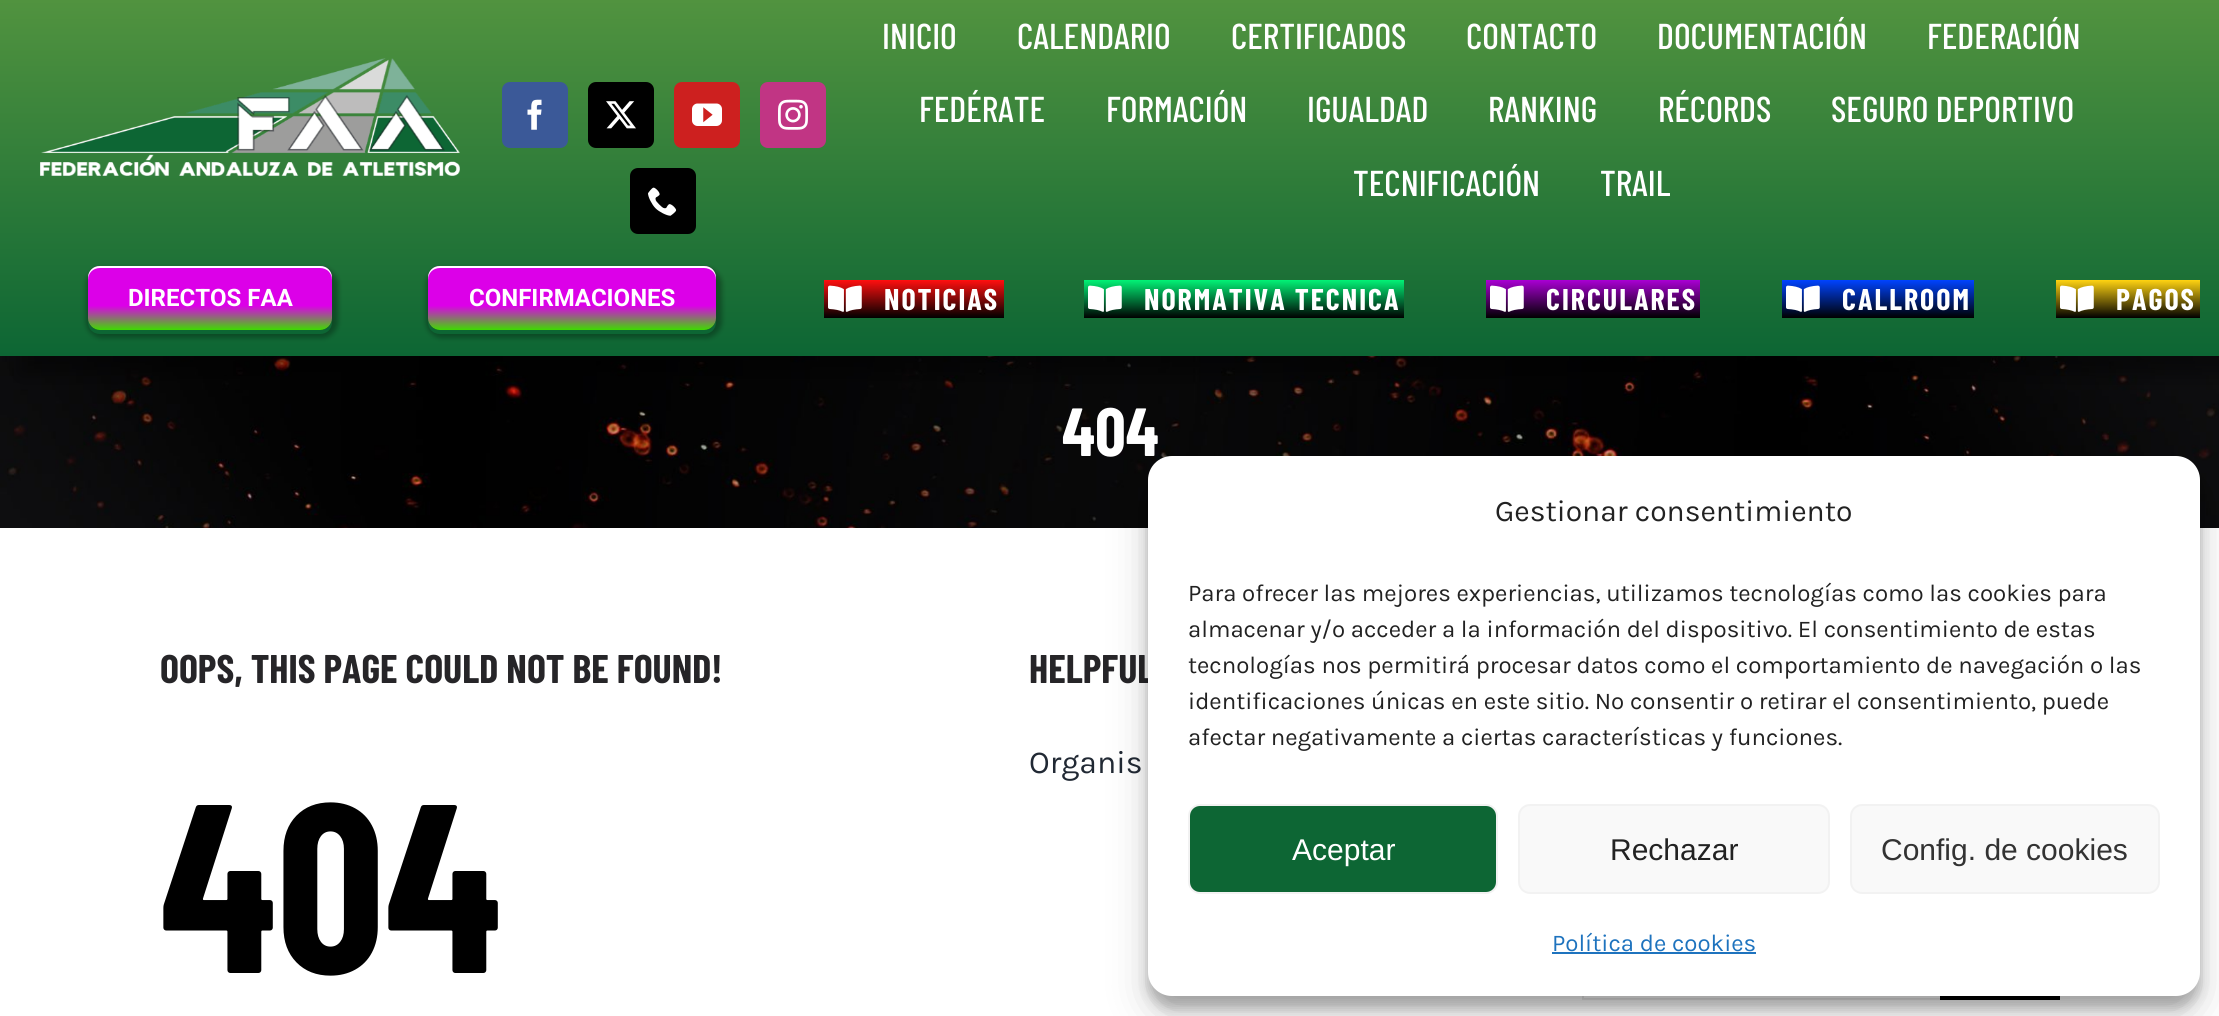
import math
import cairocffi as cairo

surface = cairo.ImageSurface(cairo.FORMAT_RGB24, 2219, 1016)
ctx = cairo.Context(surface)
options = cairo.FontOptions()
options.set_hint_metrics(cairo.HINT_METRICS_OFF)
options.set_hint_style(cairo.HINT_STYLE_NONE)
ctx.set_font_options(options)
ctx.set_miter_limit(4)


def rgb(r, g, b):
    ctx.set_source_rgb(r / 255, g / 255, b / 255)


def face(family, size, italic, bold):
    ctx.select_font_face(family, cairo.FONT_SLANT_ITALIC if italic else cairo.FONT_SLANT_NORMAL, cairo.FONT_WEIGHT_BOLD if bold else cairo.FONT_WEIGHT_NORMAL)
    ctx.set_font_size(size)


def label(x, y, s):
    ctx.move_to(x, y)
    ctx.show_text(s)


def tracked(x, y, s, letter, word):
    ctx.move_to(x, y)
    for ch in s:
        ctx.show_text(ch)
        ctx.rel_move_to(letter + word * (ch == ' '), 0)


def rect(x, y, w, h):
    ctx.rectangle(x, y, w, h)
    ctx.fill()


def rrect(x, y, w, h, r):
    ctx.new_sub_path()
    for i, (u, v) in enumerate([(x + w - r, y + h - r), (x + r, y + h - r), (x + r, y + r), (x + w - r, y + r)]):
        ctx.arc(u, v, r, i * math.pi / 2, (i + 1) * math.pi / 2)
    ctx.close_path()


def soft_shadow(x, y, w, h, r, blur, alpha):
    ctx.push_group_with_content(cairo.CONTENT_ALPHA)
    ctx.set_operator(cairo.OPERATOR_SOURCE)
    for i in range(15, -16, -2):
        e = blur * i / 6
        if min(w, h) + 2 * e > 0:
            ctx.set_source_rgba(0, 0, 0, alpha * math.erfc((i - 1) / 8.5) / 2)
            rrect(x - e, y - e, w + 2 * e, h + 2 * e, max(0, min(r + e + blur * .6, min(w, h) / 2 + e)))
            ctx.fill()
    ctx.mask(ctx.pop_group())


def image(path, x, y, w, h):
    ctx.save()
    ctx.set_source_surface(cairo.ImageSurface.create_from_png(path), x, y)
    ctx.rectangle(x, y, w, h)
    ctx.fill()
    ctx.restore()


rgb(255, 255, 255)
ctx.paint()
image('image11.png', 0, 356, 2219, 172)
rgb(0, 0, 0)
soft_shadow(20, 18, 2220, 356, 0, 9, 0.4)
gradient = cairo.LinearGradient(1110, 0, 1110, 356)
gradient.add_color_stop_rgba(0, 0.318, 0.576, 0.247, 1)
gradient.add_color_stop_rgba(1, 0.051, 0.4, 0.204, 1)
ctx.set_source(gradient)
rect(0, 0, 2219, 356)
image('image0.png', 40, 58, 420, 118)
rgb(59, 89, 152)
rrect(503, 83, 64, 64, 7)
ctx.fill_preserve()
ctx.stroke()
image('image1.png', 527, 99, 15, 31)
rgb(0, 0, 0)
rrect(589, 83, 64, 64, 7)
ctx.fill_preserve()
ctx.stroke()
image('image2.png', 606, 101, 30, 28)
rgb(205, 32, 31)
rrect(675, 83, 64, 64, 7)
ctx.fill_preserve()
ctx.stroke()
image('image3.png', 692, 103, 30, 23)
rgb(193, 53, 132)
rrect(761, 83, 64, 64, 7)
ctx.fill_preserve()
ctx.stroke()
image('image4.png', 778, 99, 30, 31)
rgb(0, 0, 0)
rrect(631, 169, 64, 64, 7)
ctx.fill_preserve()
ctx.stroke()
image('image5.png', 648, 187, 29, 29)
face('Barlow Condensed Medium', 36, 0, 0)
rgb(255, 255, 255)
label(882, 49, 'INICIO')
label(1017, 49, 'CALENDARIO')
label(1231, 49, 'CERTIFICADOS')
label(1466, 49, 'CONTACTO')
label(1657, 49, 'DOCUMENTACIÓN')
label(1927, 49, 'FEDERACIÓN')
label(919, 122, 'FEDÉRATE')
label(1106, 122, 'FORMACIÓN')
label(1307, 122, 'IGUALDAD')
label(1488, 122, 'RANKING')
label(1658, 122, 'RÉCORDS')
label(1831, 122, 'SEGURO DEPORTIVO')
label(1353, 196, 'TECNIFICACIÓN')
label(1600, 196, 'TRAIL')
rgb(0, 0, 0)
soft_shadow(86, 268, 252, 70, 16, 2.5, 0.3)
rgb(13, 102, 52)
ctx.new_path()
ctx.move_to(88, 318)
ctx.line_to(88, 322)
ctx.curve_to(88, 329, 93, 334, 100, 334)
ctx.line_to(320, 334)
ctx.curve_to(327, 334, 332, 329, 332, 322)
ctx.line_to(332, 318)
ctx.curve_to(332, 325, 327, 330, 320, 330)
ctx.line_to(100, 330)
ctx.curve_to(93, 330, 88, 325, 88, 318)
ctx.close_path()
ctx.fill()
gradient = cairo.LinearGradient(210, 266, 210, 330)
gradient.add_color_stop_rgba(0.62, 0.863, 0, 0.91, 1)
gradient.add_color_stop_rgba(1, 0.243, 0.859, 0, 1)
ctx.set_source(gradient)
rrect(88, 266, 244, 64, 12)
ctx.fill()
rgb(255, 255, 255)
ctx.new_path()
ctx.move_to(100, 268)
ctx.line_to(320, 268)
ctx.curve_to(327, 268, 332, 273, 332, 280)
ctx.line_to(332, 278)
ctx.curve_to(332, 271, 327, 266, 320, 266)
ctx.line_to(100, 266)
ctx.curve_to(93, 266, 88, 271, 88, 278)
ctx.line_to(88, 280)
ctx.curve_to(88, 273, 93, 268, 100, 268)
ctx.close_path()
ctx.fill()
face('Roboto', 24, 0, 1)
label(128, 306, 'DIRECTOS FAA')
rgb(0, 0, 0)
soft_shadow(426, 268, 296, 70, 16, 2.5, 0.3)
rgb(13, 102, 52)
ctx.new_path()
ctx.move_to(428, 318)
ctx.line_to(428, 322)
ctx.curve_to(428, 329, 433, 334, 440, 334)
ctx.line_to(704, 334)
ctx.curve_to(711, 334, 716, 329, 716, 322)
ctx.line_to(716, 318)
ctx.curve_to(716, 325, 711, 330, 704, 330)
ctx.line_to(440, 330)
ctx.curve_to(433, 330, 428, 325, 428, 318)
ctx.close_path()
ctx.fill()
gradient = cairo.LinearGradient(572, 266, 572, 330)
gradient.add_color_stop_rgba(0.62, 0.863, 0, 0.91, 1)
gradient.add_color_stop_rgba(1, 0.243, 0.859, 0, 1)
ctx.set_source(gradient)
rrect(428, 266, 288, 64, 12)
ctx.fill()
rgb(255, 255, 255)
ctx.new_path()
ctx.move_to(440, 268)
ctx.line_to(704, 268)
ctx.curve_to(711, 268, 716, 273, 716, 280)
ctx.line_to(716, 278)
ctx.curve_to(716, 271, 711, 266, 704, 266)
ctx.line_to(440, 266)
ctx.curve_to(433, 266, 428, 271, 428, 278)
ctx.line_to(428, 280)
ctx.curve_to(428, 273, 433, 268, 440, 268)
ctx.close_path()
ctx.fill()
label(469, 306, 'CONFIRMACIONES')
gradient = cairo.LinearGradient(914, 280, 914, 318)
gradient.add_color_stop_rgba(0, 1, 0.059, 0.059, 1)
gradient.add_color_stop_rgba(1, 0, 0, 0, 1)
ctx.set_source(gradient)
rect(824, 280, 180, 38)
image('image6.png', 828, 285, 34, 27)
face('Barlow Condensed', 30, 0, 1)
rgb(255, 255, 255)
tracked(884, 310, 'NOTICIAS', 2, 0)
gradient = cairo.LinearGradient(1244, 280, 1244, 318)
gradient.add_color_stop_rgba(0, 0.008, 0.949, 0.463, 1)
gradient.add_color_stop_rgba(1, 0, 0, 0, 1)
ctx.set_source(gradient)
rect(1084, 280, 320, 38)
image('image7.png', 1088, 285, 34, 27)
rgb(255, 255, 255)
tracked(1144, 310, 'NORMATIVA TECNICA', 2, 0)
gradient = cairo.LinearGradient(1593, 280, 1593, 318)
gradient.add_color_stop_rgba(0, 0.663, 0, 0.827, 1)
gradient.add_color_stop_rgba(1, 0, 0, 0, 1)
ctx.set_source(gradient)
rect(1486, 280, 214, 38)
image('image8.png', 1490, 285, 34, 27)
rgb(255, 255, 255)
tracked(1546, 310, 'CIRCULARES', 2, 0)
gradient = cairo.LinearGradient(1878, 280, 1878, 318)
gradient.add_color_stop_rgba(0, 0, 0.263, 1, 1)
gradient.add_color_stop_rgba(1, 0, 0, 0, 1)
ctx.set_source(gradient)
rect(1782, 280, 192, 38)
image('image9.png', 1786, 285, 34, 27)
rgb(255, 255, 255)
tracked(1842, 310, 'CALLROOM', 2, 0)
gradient = cairo.LinearGradient(2128, 280, 2128, 318)
gradient.add_color_stop_rgba(0, 1, 0.827, 0.067, 1)
gradient.add_color_stop_rgba(1, 0, 0, 0, 1)
ctx.set_source(gradient)
rect(2056, 280, 144, 38)
image('image10.png', 2060, 285, 34, 27)
rgb(255, 255, 255)
tracked(2116, 310, 'PAGOS', 2, 0)
face('Barlow Condensed', 68, 0, 1)
label(1062, 456, '404')
face('Barlow Condensed', 40, 0, 1)
rgb(38, 37, 40)
label(160, 683, 'OOPS, THIS PAGE COULD NOT BE FOUND!')
face('Barlow Condensed', 240, 0, 1)
rgb(0, 0, 0)
label(160, 973, '404')
face('Barlow Condensed', 40, 0, 1)
rgb(38, 37, 40)
label(1029, 683, 'HELPFUL')
face('Karla', 32, 0, 0)
rgb(33, 41, 52)
label(1029, 773, 'Organis')
rgb(235, 234, 234)
rect(1582, 998, 358, 2)
rect(1582, 996, 2, 4)
rgb(0, 0, 0)
rect(1940, 996, 120, 4)
rgb(0, 0, 0)
soft_shadow(1148, 468, 1052, 540, 24, 6, 0.23)
soft_shadow(1148, 476, 1052, 540, 24, 20, 0.19)
rgb(255, 255, 255)
rrect(1148, 456, 1052, 540, 24)
ctx.fill()
face('Karla', 30, 0, 0)
rgb(34, 34, 34)
label(1495, 521, 'Gestionar consentimiento')
face('Karla', 24, 0, 0)
label(1188, 601, 'Para ofrecer las mejores experiencias, utilizamos tecnologías como las cookies para')
label(1188, 637, 'almacenar y/o acceder a la información del dispositivo. El consentimiento de estas')
label(1188, 673, 'tecnologías nos permitirá procesar datos como el comportamiento de navegación o las')
label(1188, 709, 'identificaciones únicas en este sitio. No consentir o retirar el consentimiento, puede')
label(1188, 745, 'afectar negativamente a ciertas características y funciones.')
rgb(13, 102, 52)
rrect(1189, 805, 308, 88, 11)
ctx.fill_preserve()
rgb(242, 242, 242)
ctx.stroke()
face('Liberation Sans', 30, 0, 0)
rgb(255, 255, 255)
label(1292, 860, 'Aceptar')
rgb(249, 249, 249)
rrect(1519, 805, 310, 88, 11)
ctx.fill_preserve()
rgb(242, 242, 242)
ctx.stroke()
rgb(34, 34, 34)
label(1610, 860, 'Rechazar')
rgb(249, 249, 249)
rrect(1851, 805, 308, 88, 11)
ctx.fill_preserve()
rgb(242, 242, 242)
ctx.stroke()
rgb(51, 51, 51)
label(1881, 860, 'Config. de cookies')
face('Karla', 24, 0, 0)
rgb(30, 115, 190)
label(1552, 951, 'Política de cookies')
rect(1552, 952, 204, 2)
surface.write_to_png('render.png')
